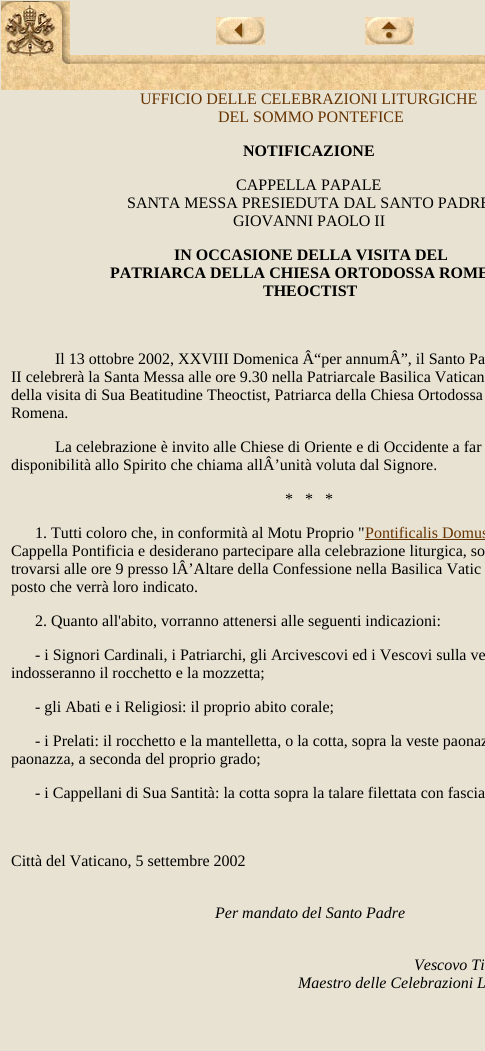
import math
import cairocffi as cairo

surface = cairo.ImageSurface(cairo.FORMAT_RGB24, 485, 1051)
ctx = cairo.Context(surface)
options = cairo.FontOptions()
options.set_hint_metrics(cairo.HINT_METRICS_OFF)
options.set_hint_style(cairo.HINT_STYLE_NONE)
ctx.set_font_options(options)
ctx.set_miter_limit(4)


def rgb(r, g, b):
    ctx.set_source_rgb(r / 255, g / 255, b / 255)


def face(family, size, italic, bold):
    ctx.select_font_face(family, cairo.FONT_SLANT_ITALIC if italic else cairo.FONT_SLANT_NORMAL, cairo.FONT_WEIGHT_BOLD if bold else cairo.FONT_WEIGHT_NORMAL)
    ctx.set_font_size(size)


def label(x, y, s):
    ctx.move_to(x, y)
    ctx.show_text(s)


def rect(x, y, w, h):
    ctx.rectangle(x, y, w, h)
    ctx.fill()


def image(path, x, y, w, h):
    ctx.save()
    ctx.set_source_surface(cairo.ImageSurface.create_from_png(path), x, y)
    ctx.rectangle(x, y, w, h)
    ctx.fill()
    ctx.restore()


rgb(232, 226, 210)
ctx.paint()
image('image0.png', 1, 1, 69, 89)
image('image1.png', 216, 17, 49, 28)
image('image2.png', 365, 17, 49, 28)
image('image3.png', 70, 55, 415, 35)
face('Liberation Serif', 16, 0, 0)
rgb(102, 51, 0)
label(140, 104, 'UFFICIO DELLE CELEBRAZIONI LITURGICHE')
label(218, 122, 'DEL SOMMO PONTEFICE')
face('Liberation Serif', 16, 0, 1)
rgb(0, 0, 0)
label(243, 156, 'NOTIFICAZIONE')
face('Liberation Serif', 16, 0, 0)
label(236, 190, 'CAPPELLA PAPALE')
label(127, 208, 'SANTA MESSA PRESIEDUTA DAL SANTO PADRE')
label(233, 226, 'GIOVANNI PAOLO II')
face('Liberation Serif', 16, 0, 1)
label(174, 260, 'IN OCCASIONE DELLA VISITA DEL')
label(110, 278, 'PATRIARCA DELLA CHIESA ORTODOSSA ROME')
label(263, 296, 'THEOCTIST')
face('Liberation Serif', 16, 0, 0)
label(55, 364, 'Il 13 ottobre 2002, XXVIII Domenica Â“per annumÂ”, il Santo Pa')
label(11, 382, 'II celebrerà la Santa Messa alle ore 9.30 nella Patriarcale Basilica Vatican')
label(11, 400, 'della visita di Sua Beatitudine Theoctist, Patriarca della Chiesa Ortodossa')
label(11, 418, 'Romena.')
label(55, 452, 'La celebrazione è invito alle Chiese di Oriente e di Occidente a far')
label(11, 470, 'disponibilità allo Spirito che chiama allÂ’unità voluta dal Signore.')
label(285, 504, '*   *   *')
label(35, 538, '1. Tutti coloro che, in conformità al Motu Proprio "')
rgb(102, 51, 0)
label(365, 538, 'Pontificalis Domus')
rect(365, 539, 120, 1)
rgb(0, 0, 0)
label(11, 556, 'Cappella Pontificia e desiderano partecipare alla celebrazione liturgica, so')
label(11, 574, 'trovarsi alle ore 9 presso lÂ’Altare della Confessione nella Basilica Vatic')
label(11, 592, 'posto che verrà loro indicato.')
label(35, 626, '2. Quanto all\'abito, vorranno attenersi alle seguenti indicazioni:')
label(35, 660, '- i Signori Cardinali, i Patriarchi, gli Arcivescovi ed i Vescovi sulla ve')
label(11, 678, 'indosseranno il rocchetto e la mozzetta;')
label(35, 712, '- gli Abati e i Religiosi: il proprio abito corale;')
label(35, 746, '- i Prelati: il rocchetto e la mantelletta, o la cotta, sopra la veste paonaz')
label(11, 764, 'paonazza, a seconda del proprio grado;')
label(35, 798, '- i Cappellani di Sua Santità: la cotta sopra la talare filettata con fascia')
label(11, 866, 'Città del Vaticano, 5 settembre 2002')
face('Liberation Serif', 16, 1, 0)
label(215, 918, 'Per mandato del Santo Padre')
label(414, 970, 'Vescovo Ti')
label(298, 988, 'Maestro delle Celebrazioni L')
surface.write_to_png('render.png')
